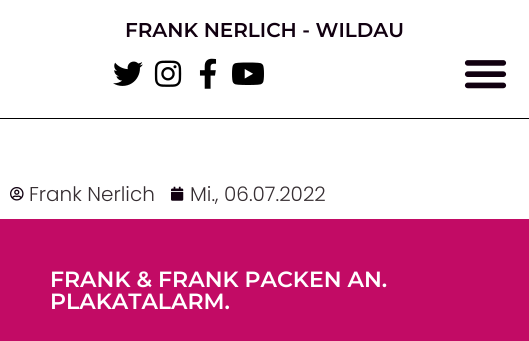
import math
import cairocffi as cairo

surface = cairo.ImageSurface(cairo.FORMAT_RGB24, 529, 341)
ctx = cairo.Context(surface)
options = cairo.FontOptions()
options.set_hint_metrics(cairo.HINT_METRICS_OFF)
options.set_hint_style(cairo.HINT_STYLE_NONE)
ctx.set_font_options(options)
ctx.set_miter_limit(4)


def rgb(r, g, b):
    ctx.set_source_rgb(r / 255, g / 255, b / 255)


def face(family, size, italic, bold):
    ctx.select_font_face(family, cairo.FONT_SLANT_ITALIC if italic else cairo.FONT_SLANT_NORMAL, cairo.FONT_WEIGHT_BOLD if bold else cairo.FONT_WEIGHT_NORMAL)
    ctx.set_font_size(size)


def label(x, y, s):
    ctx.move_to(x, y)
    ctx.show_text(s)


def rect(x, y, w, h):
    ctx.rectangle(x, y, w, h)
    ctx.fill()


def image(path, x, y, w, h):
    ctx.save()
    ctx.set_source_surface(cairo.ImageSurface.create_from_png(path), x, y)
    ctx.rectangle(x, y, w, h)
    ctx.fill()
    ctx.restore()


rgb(255, 255, 255)
ctx.paint()
rgb(0, 0, 0)
rect(0, 118, 529, 1)
face('Montserrat SemiBold', 20, 0, 0)
rgb(17, 0, 16)
label(125, 37, 'FRANK NERLICH - WILDAU')
image('image0.png', 113, 61, 30, 25)
image('image1.png', 154, 60, 28, 27)
image('image2.png', 199, 58, 18, 31)
image('image3.png', 232, 62, 32, 23)
image('image4.png', 464, 60, 43, 29)
image('image5.png', 10, 187, 14, 14)
face('Poppins Light', 20, 0, 0)
rgb(54, 46, 50)
label(29, 201, 'Frank Nerlich')
image('image6.png', 171, 186, 13, 15)
label(190, 201, 'Mi., 06.07.2022')
rgb(194, 11, 101)
rect(0, 219, 529, 122)
face('Montserrat SemiBold', 22, 0, 0)
rgb(255, 255, 255)
label(50, 287, 'FRANK & FRANK PACKEN AN.')
label(50, 309, 'PLAKATALARM.')
surface.write_to_png('render.png')
